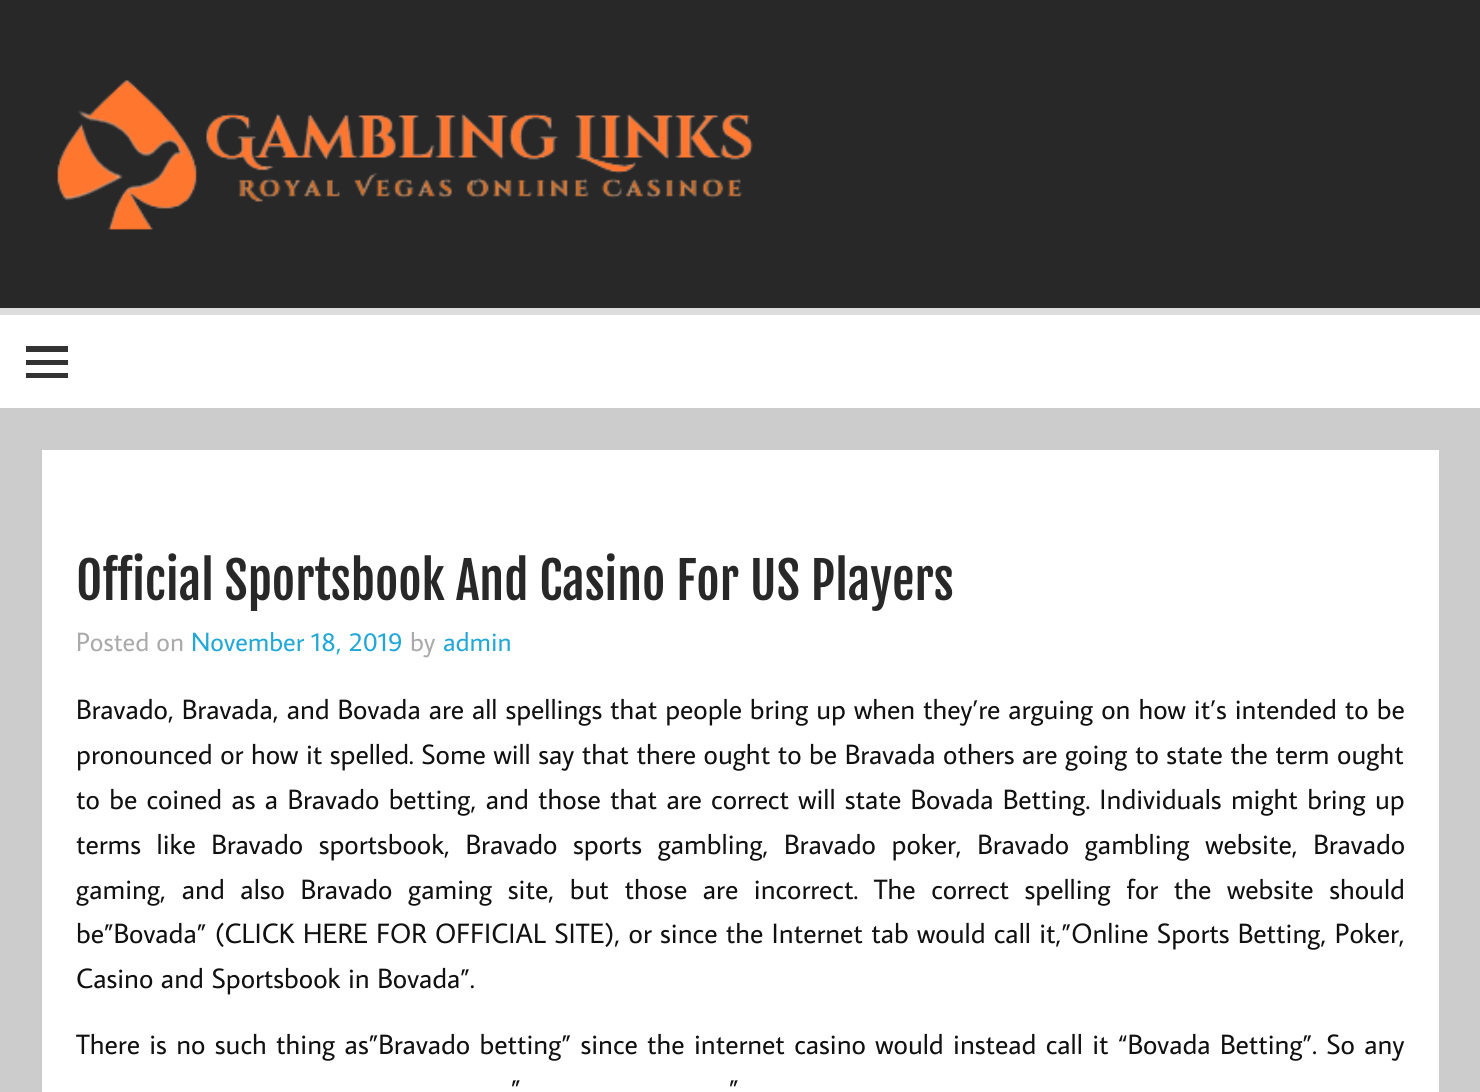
import math
import cairocffi as cairo

surface = cairo.ImageSurface(cairo.FORMAT_RGB24, 1480, 1092)
ctx = cairo.Context(surface)
options = cairo.FontOptions()
options.set_hint_metrics(cairo.HINT_METRICS_OFF)
options.set_hint_style(cairo.HINT_STYLE_NONE)
ctx.set_font_options(options)
ctx.set_miter_limit(4)


def rgb(r, g, b):
    ctx.set_source_rgb(r / 255, g / 255, b / 255)


def face(family, size, italic, bold):
    ctx.select_font_face(family, cairo.FONT_SLANT_ITALIC if italic else cairo.FONT_SLANT_NORMAL, cairo.FONT_WEIGHT_BOLD if bold else cairo.FONT_WEIGHT_NORMAL)
    ctx.set_font_size(size)


def label(x, y, s):
    ctx.move_to(x, y)
    ctx.show_text(s)


def tracked(x, y, s, letter, word):
    ctx.move_to(x, y)
    for ch in s:
        ctx.show_text(ch)
        ctx.rel_move_to(letter + word * (ch == ' '), 0)


def rect(x, y, w, h):
    ctx.rectangle(x, y, w, h)
    ctx.fill()


def image(path, x, y, w, h):
    ctx.save()
    ctx.set_source_surface(cairo.ImageSurface.create_from_png(path), x, y)
    ctx.rectangle(x, y, w, h)
    ctx.fill()
    ctx.restore()


rgb(204, 204, 204)
ctx.paint()
rgb(40, 40, 40)
rect(0, 0, 1480, 308)
image('image0.png', 57, 80, 696, 150)
rgb(255, 255, 255)
rect(0, 315, 1480, 93)
rgb(221, 221, 221)
rect(0, 308, 1480, 7)
rgb(51, 51, 51)
ctx.new_path()
ctx.move_to(26, 378)
ctx.line_to(26, 373)
ctx.line_to(68, 373)
ctx.line_to(68, 378)
ctx.close_path()
ctx.move_to(26, 346)
ctx.line_to(68, 346)
ctx.line_to(68, 352)
ctx.line_to(26, 352)
ctx.close_path()
ctx.move_to(26, 365)
ctx.line_to(26, 360)
ctx.line_to(68, 360)
ctx.line_to(68, 365)
ctx.close_path()
ctx.fill()
rgb(255, 255, 255)
rect(42, 450, 1397, 642)
face('Fjalla One', 50.4, 0, 0)
rgb(40, 40, 40)
label(76, 600, 'Official Sportsbook And Casino For US Players')
face('Average Sans', 26.5, 0, 0)
rgb(170, 170, 170)
label(76, 651, 'Posted on')
rgb(34, 168, 216)
label(191, 651, 'November 18, 2019')
rgb(170, 170, 170)
label(410, 651, 'by')
rgb(34, 168, 216)
label(443, 651, 'admin')
face('Average Sans', 28, 0, 0)
rgb(17, 17, 17)
tracked(76, 719, 'Bravado, Bravada, and Bovada are all spellings that people bring up when they’re arguing on how it’s intended to be', 0, 0.4)
label(76, 764, 'pronounced or how it spelled. Some will say that there ought to be Bravada others are going to state the term ought')
tracked(76, 809, 'to be coined as a Bravado betting, and those that are correct will state Bovada Betting. Individuals might bring up', 0, 1.75)
tracked(76, 854, 'terms like Bravado sportsbook, Bravado sports gambling, Bravado poker, Bravado gambling website, Bravado', 0, 8)
tracked(76, 899, 'gaming, and also Bravado gaming site, but those are incorrect. The correct spelling for the website should', 0, 8.1)
tracked(76, 943, 'be”Bovada” (CLICK HERE FOR OFFICIAL SITE), or since the Internet tab would call it,”Online Sports Betting, Poker,', 0, 0.8)
label(76, 988, 'Casino and Sportsbook in Bovada”.')
tracked(76, 1054, 'There is no such thing as”Bravado betting” since the internet casino would instead call it “Bovada Betting”. So any', 0, 1.8)
tracked(511, 1099, '”', 0, 4)
tracked(729, 1099, '”', 0, 4)
surface.write_to_png('render.png')
